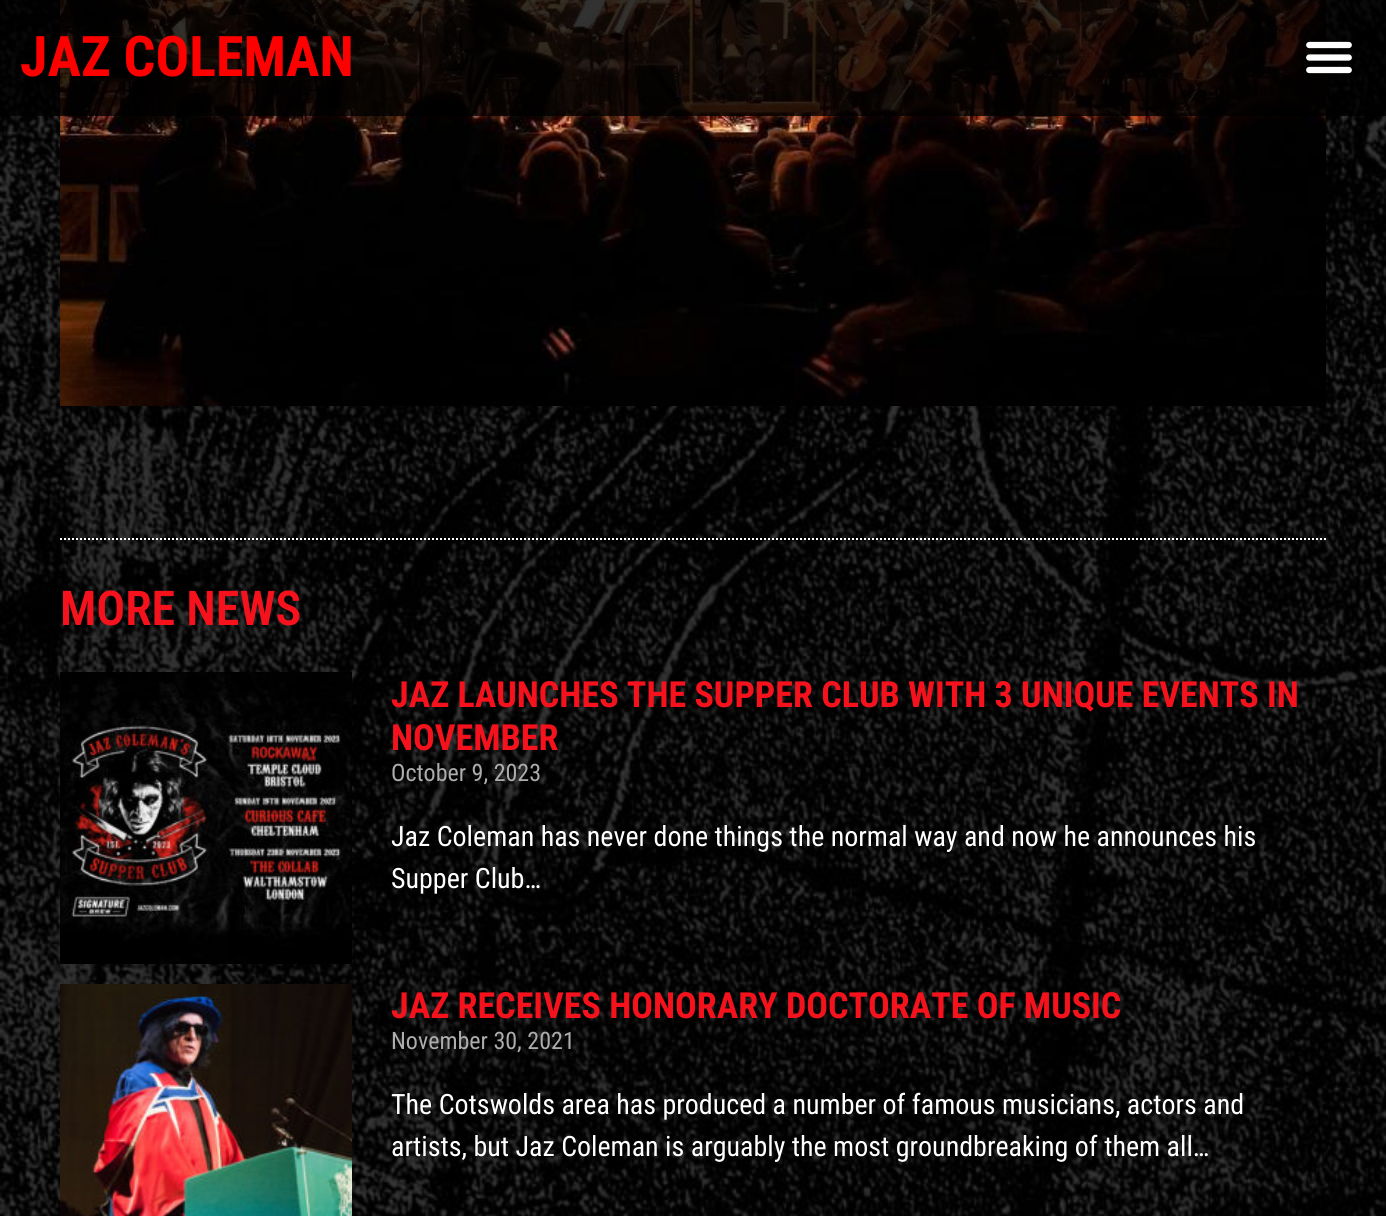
import math
import cairocffi as cairo

surface = cairo.ImageSurface(cairo.FORMAT_RGB24, 1386, 1216)
ctx = cairo.Context(surface)
options = cairo.FontOptions()
options.set_hint_metrics(cairo.HINT_METRICS_OFF)
options.set_hint_style(cairo.HINT_STYLE_NONE)
ctx.set_font_options(options)
ctx.set_miter_limit(4)


def rgb(r, g, b):
    ctx.set_source_rgb(r / 255, g / 255, b / 255)


def face(family, size, italic, bold):
    ctx.select_font_face(family, cairo.FONT_SLANT_ITALIC if italic else cairo.FONT_SLANT_NORMAL, cairo.FONT_WEIGHT_BOLD if bold else cairo.FONT_WEIGHT_NORMAL)
    ctx.set_font_size(size)


def label(x, y, s):
    ctx.move_to(x, y)
    ctx.show_text(s)


def rect(x, y, w, h):
    ctx.rectangle(x, y, w, h)
    ctx.fill()


def image(path, x, y, w, h):
    ctx.save()
    ctx.set_source_surface(cairo.ImageSurface.create_from_png(path), x, y)
    ctx.rectangle(x, y, w, h)
    ctx.fill()
    ctx.restore()


rgb(255, 255, 255)
ctx.paint()
image('image0.png', 0, 0, 1386, 1216)
image('image2.png', 60, 0, 1266, 406)
ctx.set_source_rgba(0, 0, 0, 0.8)
rect(0, 0, 1386, 116)
face('Roboto Condensed', 56, 0, 1)
rgb(255, 0, 0)
label(20, 76, 'JAZ COLEMAN')
image('image1.png', 1306, 41, 46, 33)
ctx.new_path()
ctx.move_to(60, 539)
ctx.line_to(1326, 539)
rgb(255, 255, 255)
ctx.set_dash([2, 2])
ctx.stroke()
face('Roboto Condensed SemiBold', 48, 0, 0)
rgb(246, 18, 28)
label(60, 625, 'MORE NEWS')
image('image3.png', 60, 672, 292, 292)
face('Roboto Condensed', 36, 0, 1)
label(391, 707, 'JAZ LAUNCHES THE SUPPER CLUB WITH 3 UNIQUE EVENTS IN')
label(391, 750, 'NOVEMBER')
face('Roboto Condensed', 24, 0, 0)
rgb(173, 173, 173)
label(391, 781, 'October 9, 2023')
face('Roboto Condensed', 28, 0, 0)
rgb(255, 255, 255)
label(391, 846, 'Jaz Coleman has never done things the normal way and now he announces his')
label(391, 888, 'Supper Club…')
image('image4.png', 60, 984, 292, 232)
face('Roboto Condensed', 36, 0, 1)
rgb(246, 18, 28)
label(391, 1018, 'JAZ RECEIVES HONORARY DOCTORATE OF MUSIC')
face('Roboto Condensed', 24, 0, 0)
rgb(173, 173, 173)
label(391, 1049, 'November 30, 2021')
face('Roboto Condensed', 28, 0, 0)
rgb(255, 255, 255)
label(391, 1114, 'The Cotswolds area has produced a number of famous musicians, actors and')
label(391, 1156, 'artists, but Jaz Coleman is arguably the most groundbreaking of them all…')
surface.write_to_png('render.png')
